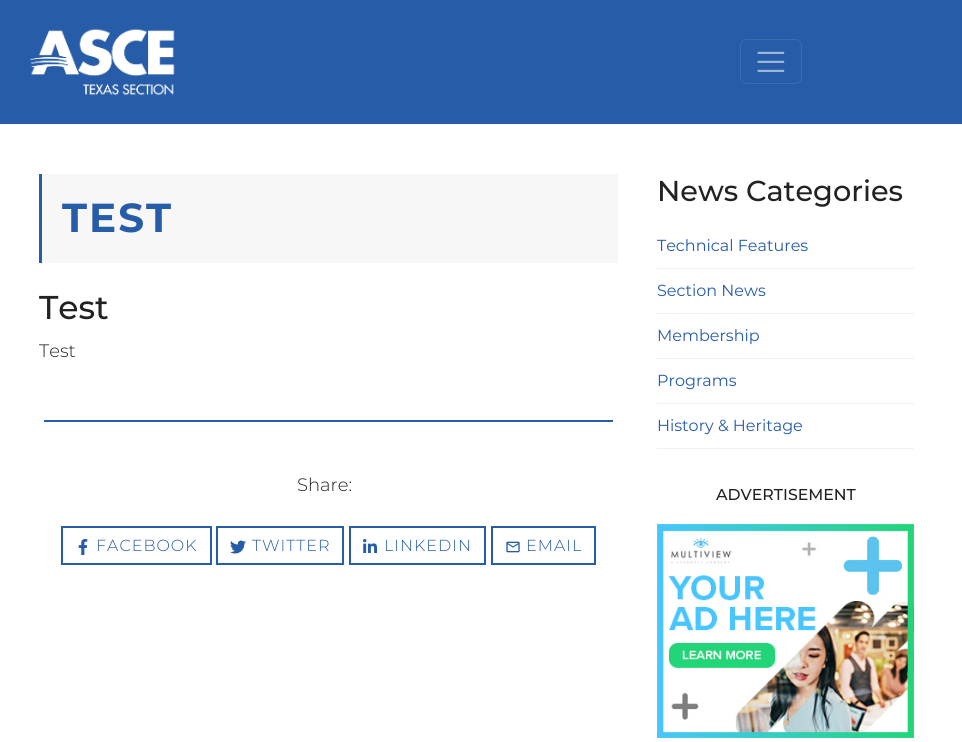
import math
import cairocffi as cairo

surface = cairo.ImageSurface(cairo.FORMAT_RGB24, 962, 742)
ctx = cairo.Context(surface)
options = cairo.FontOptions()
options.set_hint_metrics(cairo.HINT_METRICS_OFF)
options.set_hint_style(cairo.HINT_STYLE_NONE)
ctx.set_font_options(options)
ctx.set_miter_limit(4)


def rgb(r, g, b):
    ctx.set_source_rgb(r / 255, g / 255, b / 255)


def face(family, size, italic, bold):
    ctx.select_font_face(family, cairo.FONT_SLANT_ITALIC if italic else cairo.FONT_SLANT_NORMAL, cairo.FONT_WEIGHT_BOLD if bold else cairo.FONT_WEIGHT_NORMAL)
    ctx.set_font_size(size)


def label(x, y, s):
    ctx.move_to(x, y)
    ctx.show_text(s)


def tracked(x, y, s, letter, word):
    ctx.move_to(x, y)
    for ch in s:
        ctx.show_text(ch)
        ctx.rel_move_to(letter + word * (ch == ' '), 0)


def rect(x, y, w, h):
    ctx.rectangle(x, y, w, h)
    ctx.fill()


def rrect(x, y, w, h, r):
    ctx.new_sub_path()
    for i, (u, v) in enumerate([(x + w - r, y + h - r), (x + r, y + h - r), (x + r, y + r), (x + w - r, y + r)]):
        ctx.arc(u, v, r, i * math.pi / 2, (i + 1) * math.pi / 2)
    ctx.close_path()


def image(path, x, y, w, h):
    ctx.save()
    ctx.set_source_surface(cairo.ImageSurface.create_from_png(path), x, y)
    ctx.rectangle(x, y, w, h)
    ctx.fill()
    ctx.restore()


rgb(255, 255, 255)
ctx.paint()
rgb(38, 92, 168)
rect(0, 0, 962, 124)
image('image0.png', 29, 29, 146, 67)
rrect(740.5, 39.5, 61, 44, 6.5)
rgb(60, 108, 177)
ctx.set_line_width(1)
ctx.stroke()
image('image1.png', 757, 51, 28, 21)
rgb(247, 247, 247)
rect(42, 174, 576, 89)
rgb(38, 92, 168)
rect(39, 174, 3, 89)
face('Montserrat', 40.5, 0, 1)
tracked(62, 232, 'TEST', 2, 0)
face('Montserrat Medium', 33, 0, 0)
rgb(34, 34, 34)
label(39, 319, 'Test')
face('Montserrat Light', 18, 0, 0)
label(39, 357, 'Test')
rgb(38, 92, 168)
rect(44, 420, 569, 2)
rgb(34, 34, 34)
label(297, 491, 'Share:')
ctx.rectangle(62, 527, 149, 37)
rgb(38, 92, 168)
ctx.set_line_width(2)
ctx.stroke()
image('image2.png', 78, 539, 10, 16)
face('Montserrat Light', 16, 0, 0)
tracked(96, 551, 'FACEBOOK', 1, 0)
ctx.rectangle(217, 527, 126, 37)
ctx.stroke()
image('image3.png', 230, 540, 16, 14)
tracked(252, 551, 'TWITTER', 1, 0)
ctx.rectangle(350, 527, 135, 37)
ctx.stroke()
image('image4.png', 363, 539, 14, 14)
tracked(384, 551, 'LINKEDIN', 1, 0)
ctx.rectangle(492, 527, 103, 37)
ctx.stroke()
image('image5.png', 506, 541, 14, 12)
tracked(526, 551, 'EMAIL', 1, 0)
face('Montserrat Medium', 28.75, 0, 0)
rgb(34, 34, 34)
label(657, 201, 'News Categories')
rgb(241, 241, 241)
rect(657, 268, 257, 1)
face('Montserrat Thin', 16, 0, 0)
rgb(38, 92, 168)
label(657, 251, 'Technical Features')
rgb(241, 241, 241)
rect(657, 313, 257, 1)
rgb(38, 92, 168)
label(657, 296, 'Section News')
rgb(241, 241, 241)
rect(657, 358, 257, 1)
rgb(38, 92, 168)
label(657, 341, 'Membership')
rgb(241, 241, 241)
rect(657, 403, 257, 1)
rgb(38, 92, 168)
label(657, 386, 'Programs')
rgb(241, 241, 241)
rect(657, 448, 257, 1)
rgb(38, 92, 168)
label(657, 431, 'History & Heritage')
face('Montserrat Medium', 15.75, 0, 0)
rgb(34, 34, 34)
label(716, 500, 'ADVERTISEMENT')
image('image6.png', 657, 524, 257, 214)
surface.write_to_png('render.png')
